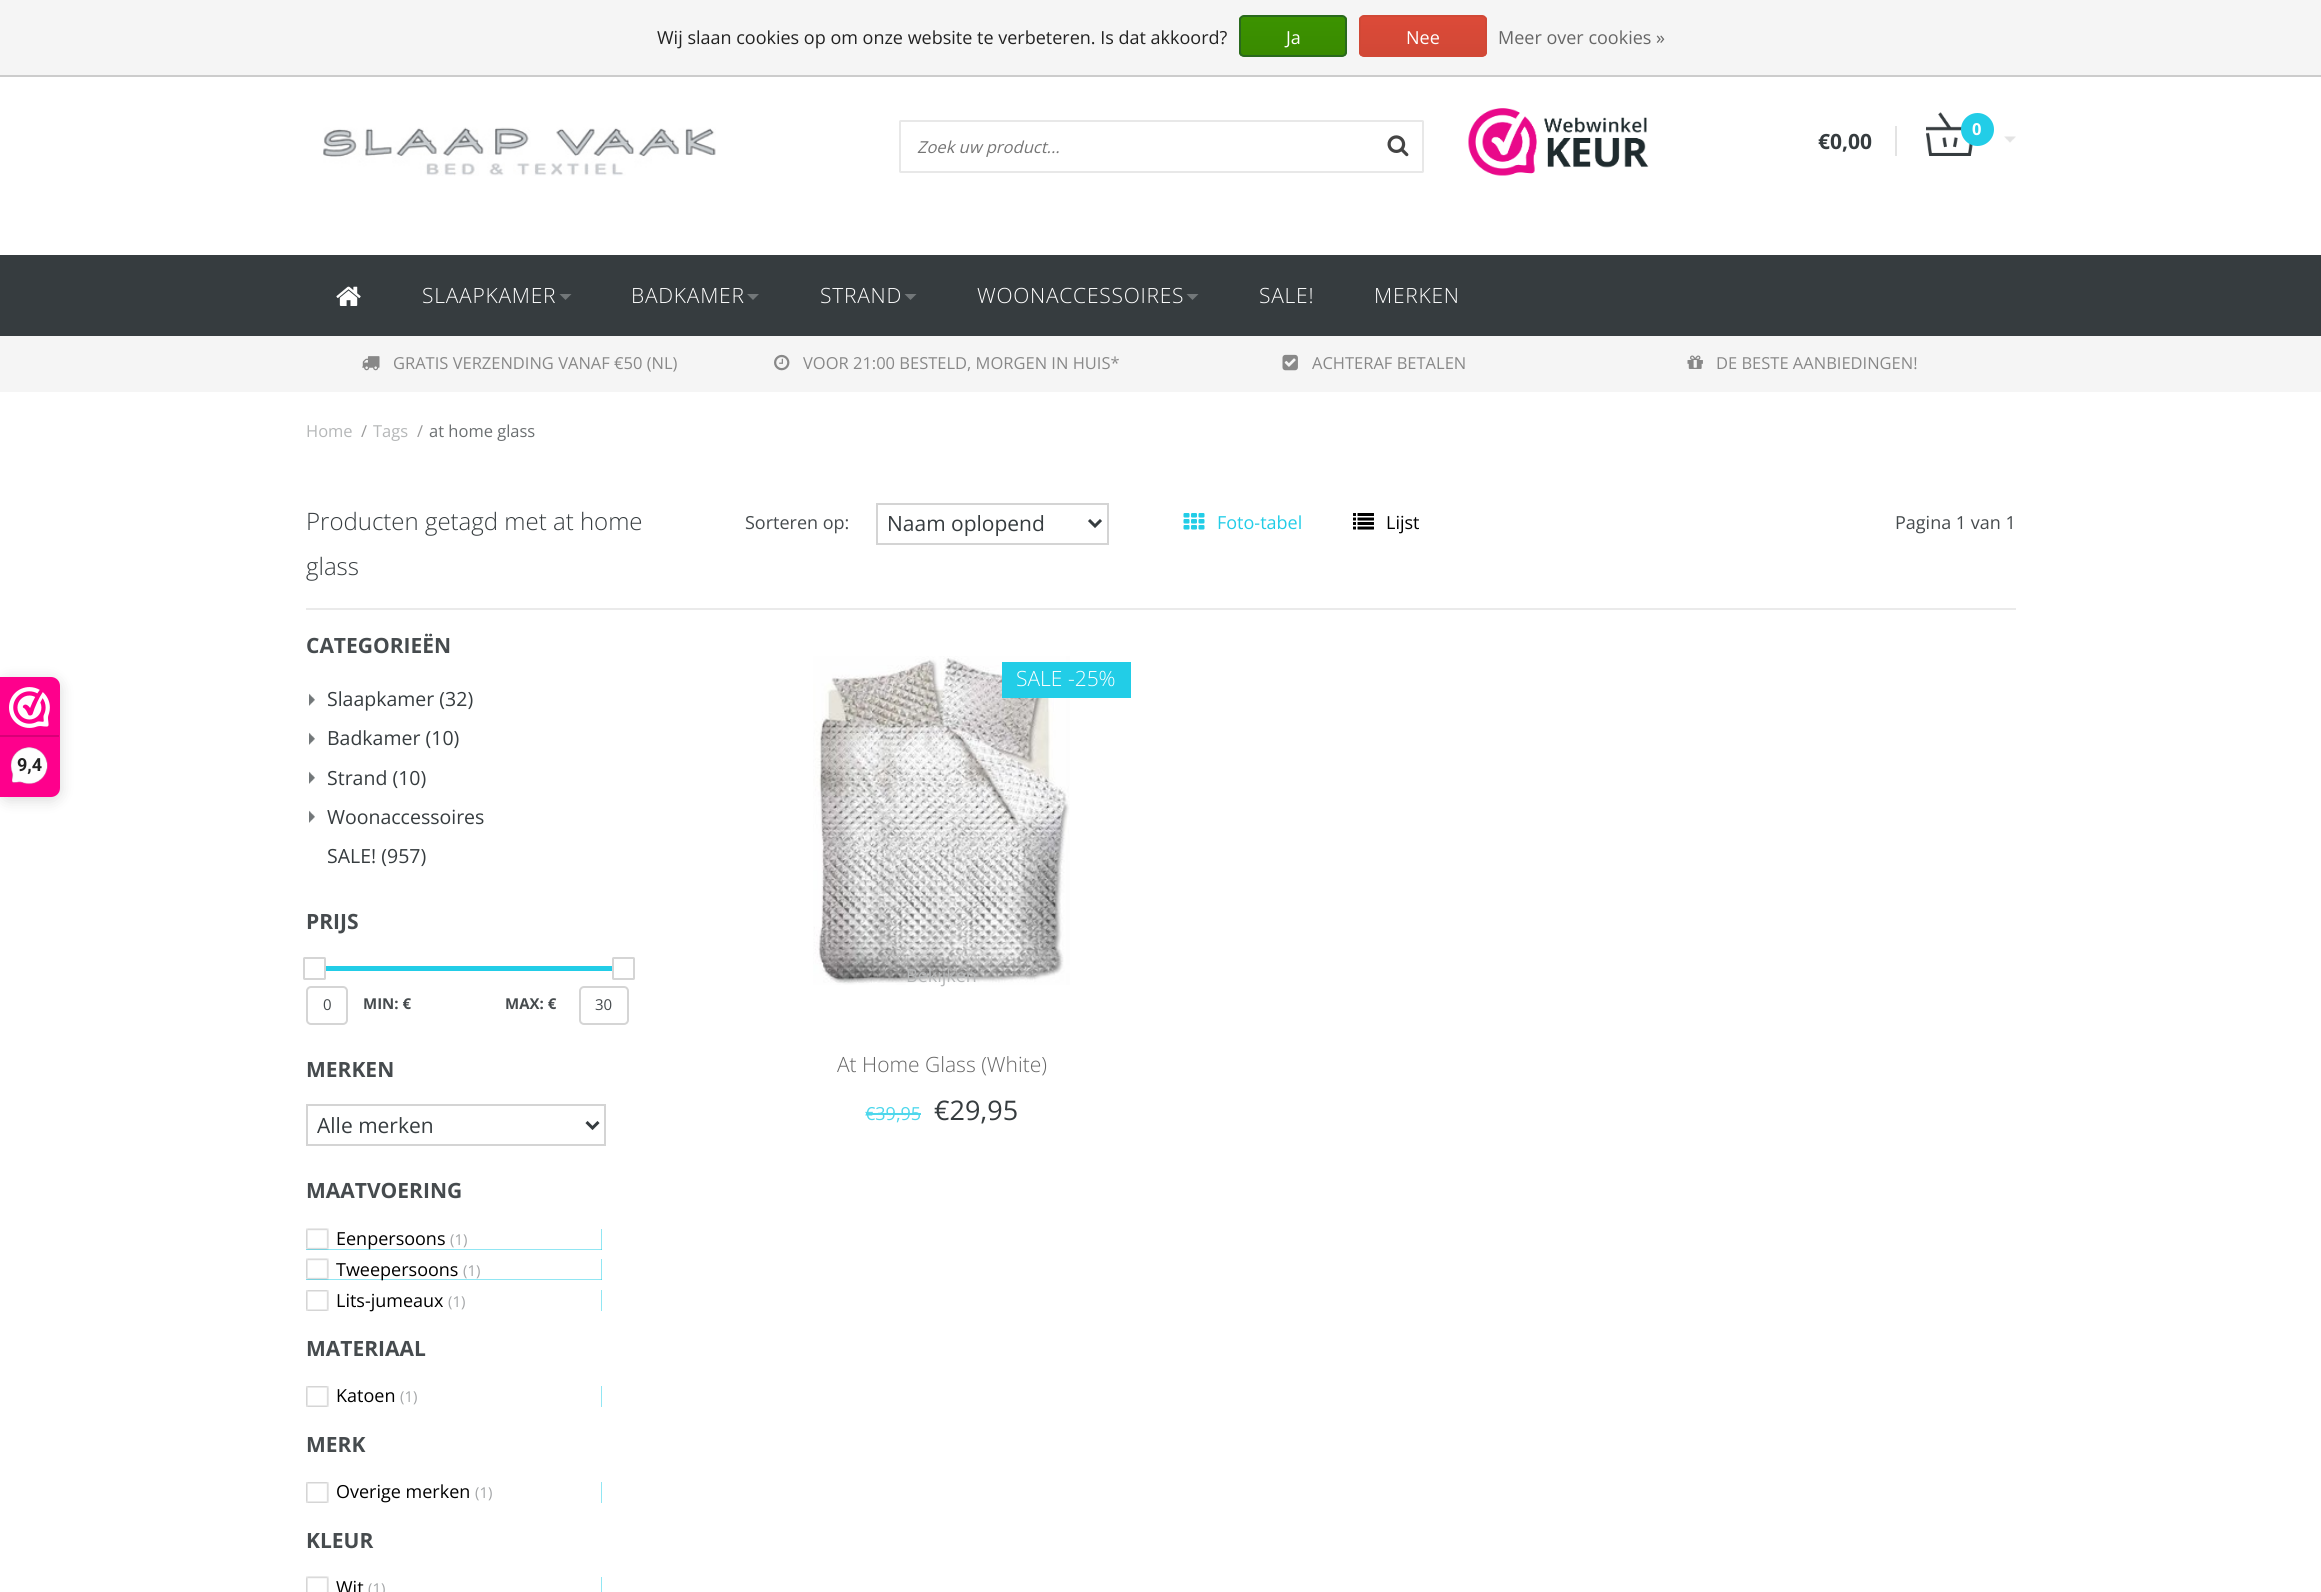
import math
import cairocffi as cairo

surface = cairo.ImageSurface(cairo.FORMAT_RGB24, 2321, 1592)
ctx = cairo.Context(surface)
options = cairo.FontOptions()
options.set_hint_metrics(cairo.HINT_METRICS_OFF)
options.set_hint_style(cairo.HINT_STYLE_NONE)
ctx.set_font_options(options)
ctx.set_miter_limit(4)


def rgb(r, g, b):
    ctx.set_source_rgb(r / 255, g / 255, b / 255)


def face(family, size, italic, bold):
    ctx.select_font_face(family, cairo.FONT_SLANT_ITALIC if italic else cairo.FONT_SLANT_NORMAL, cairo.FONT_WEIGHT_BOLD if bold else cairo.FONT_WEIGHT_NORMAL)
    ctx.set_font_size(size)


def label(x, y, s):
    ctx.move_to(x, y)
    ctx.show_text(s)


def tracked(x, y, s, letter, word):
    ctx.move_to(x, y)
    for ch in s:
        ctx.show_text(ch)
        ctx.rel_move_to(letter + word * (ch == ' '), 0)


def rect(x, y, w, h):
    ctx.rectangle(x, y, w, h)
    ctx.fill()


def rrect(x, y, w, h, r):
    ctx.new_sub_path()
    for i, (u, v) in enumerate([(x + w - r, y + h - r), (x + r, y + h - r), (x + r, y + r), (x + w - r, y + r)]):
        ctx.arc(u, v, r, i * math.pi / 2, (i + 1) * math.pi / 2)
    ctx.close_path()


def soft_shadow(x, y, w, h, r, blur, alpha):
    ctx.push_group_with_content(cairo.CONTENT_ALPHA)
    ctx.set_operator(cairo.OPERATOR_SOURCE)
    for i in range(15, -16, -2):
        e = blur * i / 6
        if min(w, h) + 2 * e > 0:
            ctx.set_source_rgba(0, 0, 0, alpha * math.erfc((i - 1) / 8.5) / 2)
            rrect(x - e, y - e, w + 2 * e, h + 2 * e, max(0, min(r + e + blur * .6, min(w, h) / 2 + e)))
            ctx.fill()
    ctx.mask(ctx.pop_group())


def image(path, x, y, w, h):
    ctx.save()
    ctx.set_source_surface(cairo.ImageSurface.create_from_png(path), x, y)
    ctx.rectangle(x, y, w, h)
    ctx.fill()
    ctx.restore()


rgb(255, 255, 255)
ctx.paint()
rgb(245, 245, 245)
rect(0, 0, 2321, 75)
rgb(204, 204, 204)
rect(0, 75, 2321, 2)
face('Open Sans', 18, 0, 0)
rgb(34, 34, 34)
label(657, 44, 'Wij slaan cookies op om onze website te verbeteren. Is dat akkoord?')
ctx.save()
rrect(1239, 15, 108, 42, 5)
ctx.clip()
gradient = cairo.LinearGradient(1293, 16, 1293, 56)
gradient.add_color_stop_rgba(0, 0.235, 0.576, 0, 1)
gradient.add_color_stop_rgba(1, 0.224, 0.541, 0, 1)
ctx.set_source(gradient)
rect(1239, 17, 108, 39)
ctx.restore()
rrect(1240, 16, 106, 40, 4)
rgb(41, 105, 29)
ctx.stroke()
rgb(255, 255, 255)
label(1286, 44, 'Ja')
ctx.save()
rrect(1359, 15, 128, 42, 5)
ctx.clip()
gradient = cairo.LinearGradient(1423, 16, 1423, 56)
gradient.add_color_stop_rgba(0, 0.863, 0.29, 0.22, 1)
gradient.add_color_stop_rgba(1, 0.82, 0.282, 0.212, 1)
ctx.set_source(gradient)
rect(1359, 17, 128, 39)
ctx.restore()
rrect(1360, 16, 126, 40, 4)
rgb(209, 72, 54)
ctx.stroke()
rgb(255, 255, 255)
label(1406, 44, 'Nee')
rgb(102, 102, 102)
label(1498, 44, 'Meer over cookies »')
image('image0.png', 323, 127, 393, 49)
rrect(900, 121, 523, 51, 0.5)
rgb(232, 232, 232)
ctx.stroke()
face('Open Sans', 16.5, 1, 0)
rgb(117, 117, 117)
label(917, 153, 'Zoek uw product...')
image('image1.png', 1387, 135, 22, 22)
image('image2.png', 1468, 108, 181, 68)
image('image3.png', 1926, 112, 90, 44)
rgb(227, 227, 227)
rect(1895, 126, 2, 30)
rgb(34, 205, 231)
ctx.arc(1977.5, 129.5, 16.5, 0, 2 * math.pi)
ctx.fill()
face('Open Sans', 16.5, 0, 1)
rgb(255, 255, 255)
label(1972, 135, '0')
face('Open Sans', 21, 0, 1)
rgb(54, 60, 63)
label(1818, 149, '€0,00')
rect(0, 255, 2321, 81)
image('image4.png', 336, 286, 25, 20)
face('Open Sans Light', 21, 0, 0)
rgb(255, 255, 255)
tracked(422, 303, 'SLAAPKAMER', 0.75, 0)
rgb(114, 119, 121)
ctx.new_path()
ctx.move_to(559.5, 294)
ctx.line_to(571.5, 294)
ctx.line_to(565.5, 300)
ctx.close_path()
ctx.fill()
rgb(255, 255, 255)
tracked(631, 303, 'BADKAMER', 0.75, 0)
rgb(114, 119, 121)
ctx.new_path()
ctx.move_to(747, 294)
ctx.line_to(759, 294)
ctx.line_to(753, 300)
ctx.close_path()
ctx.fill()
rgb(255, 255, 255)
tracked(820, 303, 'STRAND', 0.75, 0)
rgb(114, 119, 121)
ctx.new_path()
ctx.move_to(904.5, 294)
ctx.line_to(916.5, 294)
ctx.line_to(910.5, 300)
ctx.close_path()
ctx.fill()
rgb(255, 255, 255)
tracked(977, 303, 'WOONACCESSOIRES', 0.75, 0)
rgb(114, 119, 121)
ctx.new_path()
ctx.move_to(1186.5, 294)
ctx.line_to(1198.5, 294)
ctx.line_to(1192.5, 300)
ctx.close_path()
ctx.fill()
rgb(255, 255, 255)
tracked(1259, 303, 'SALE!', 0.75, 0)
tracked(1374, 303, 'MERKEN', 0.75, 0)
rgb(245, 245, 245)
rect(0, 336, 2321, 56)
image('image5.png', 362, 356, 18, 15)
face('Open Sans', 16.5, 0, 0)
rgb(136, 136, 136)
label(393, 369, 'GRATIS VERZENDING VANAF €50 (NL)')
image('image6.png', 774, 354, 16, 17)
label(803, 369, 'VOOR 21:00 BESTELD, MORGEN IN HUIS*')
image('image7.png', 1282, 354, 16, 17)
label(1312, 369, 'ACHTERAF BETALEN')
image('image8.png', 1687, 355, 16, 14)
label(1716, 369, 'DE BESTE AANBIEDINGEN!')
rgb(0, 0, 0)
soft_shadow(0, 680, 60, 120, 9, 7.5, 0.15)
rgb(254, 0, 140)
ctx.new_path()
ctx.move_to(0, 677)
ctx.line_to(51, 677)
ctx.curve_to(56, 677, 60, 681, 60, 686)
ctx.line_to(60, 788)
ctx.curve_to(60, 793, 56, 797, 51, 797)
ctx.line_to(0, 797)
ctx.close_path()
ctx.fill()
image('image9.png', 9, 687, 41, 41)
rgb(216, 0, 119)
rect(0, 735, 59, 2)
image('image10.png', 10, 747, 38, 38)
face('Roboto', 18, 0, 1)
rgb(34, 34, 34)
label(17, 771, '9,4')
face('Open Sans', 16.5, 0, 0)
rgb(181, 183, 184)
label(306, 437, 'Home')
rgb(153, 153, 153)
tracked(361, 437, '/', -3, 0)
rgb(181, 183, 184)
label(373, 437, 'Tags')
rgb(153, 153, 153)
tracked(417, 437, '/', -3, 0)
rgb(107, 111, 113)
label(429, 437, 'at home glass')
face('Open Sans Light', 24, 0, 0)
rgb(54, 60, 63)
label(306, 530, 'Producten getagd met at home')
label(306, 575, 'glass')
face('Open Sans', 18, 0, 0)
rgb(70, 75, 78)
label(745, 529, 'Sorteren op:')
ctx.rectangle(877, 504, 231, 40)
rgb(212, 212, 212)
ctx.stroke()
ctx.new_path()
ctx.move_to(1089, 520)
ctx.line_to(1095, 526)
ctx.line_to(1101, 520)
rgb(54, 60, 63)
ctx.set_line_width(3)
ctx.stroke()
face('Open Sans', 21, 0, 0)
label(887, 531, 'Naam oplopend')
image('image11.png', 1183, 513, 22, 17)
face('Open Sans', 18, 0, 0)
rgb(34, 205, 231)
label(1217, 529, 'Foto-tabel')
image('image12.png', 1353, 513, 21, 17)
rgb(0, 0, 0)
label(1386, 529, 'Lijst')
rgb(70, 75, 78)
label(1895, 529, 'Pagina 1 van 1')
rgb(234, 234, 234)
rect(306, 608, 1710, 2)
face('Open Sans', 21, 0, 1)
rgb(70, 75, 78)
label(306, 653, 'CATEGORIEËN')
image('image13.png', 309, 693, 6, 13)
face('Open Sans', 19.5, 0, 0)
rgb(54, 60, 63)
label(327, 706, 'Slaapkamer (32)')
image('image13.png', 309, 732, 6, 13)
label(327, 745, 'Badkamer (10)')
image('image13.png', 309, 771, 6, 13)
label(327, 785, 'Strand (10)')
image('image13.png', 309, 810, 6, 13)
label(327, 824, 'Woonaccessoires')
label(327, 863, 'SALE! (957)')
face('Open Sans', 21, 0, 1)
rgb(70, 75, 78)
label(306, 929, 'PRIJS')
rrect(304, 958, 21, 21, 0.5)
rgb(213, 213, 213)
ctx.set_line_width(2)
ctx.stroke()
rgb(34, 205, 231)
rect(326, 966, 286, 5)
rrect(613, 958, 21, 21, 0.5)
rgb(213, 213, 213)
ctx.stroke()
rrect(307, 987, 40, 37, 4)
ctx.stroke()
face('Open Sans', 15, 0, 0)
rgb(70, 75, 78)
label(323, 1010, '0')
face('Open Sans', 15, 0, 1)
label(363, 1009, 'MIN: €')
label(505, 1009, 'MAX: €')
rrect(580, 987, 48, 37, 4)
rgb(213, 213, 213)
ctx.stroke()
face('Open Sans', 15, 0, 0)
rgb(70, 75, 78)
label(595, 1010, '30')
face('Open Sans', 21, 0, 1)
label(306, 1077, 'MERKEN')
ctx.rectangle(307, 1105, 298, 40)
rgb(212, 212, 212)
ctx.stroke()
ctx.new_path()
ctx.move_to(586.5, 1122)
ctx.line_to(592.5, 1128)
ctx.line_to(598.5, 1122)
rgb(54, 60, 63)
ctx.set_line_width(3)
ctx.stroke()
face('Open Sans', 21, 0, 0)
label(317, 1133, 'Alle merken')
face('Open Sans', 21, 0, 1)
rgb(70, 75, 78)
label(306, 1198, 'MAATVOERING')
rgb(34, 205, 231)
rect(306, 1229, 296, 21)
image('image14.png', 306, 1228, 296, 22)
face('Open Sans', 18, 0, 0)
rgb(0, 0, 0)
label(336, 1245, 'Eenpersoons')
face('Open Sans', 15, 0, 0)
rgb(163, 165, 167)
label(450, 1245, '(1)')
rgb(34, 205, 231)
rect(306, 1259, 296, 21)
image('image14.png', 306, 1258, 296, 22)
face('Open Sans', 18, 0, 0)
rgb(0, 0, 0)
label(336, 1276, 'Tweepersoons')
face('Open Sans', 15, 0, 0)
rgb(163, 165, 167)
label(463, 1276, '(1)')
rgb(34, 205, 231)
rect(601, 1290, 1, 21)
image('image15.png', 306, 1290, 296, 21)
face('Open Sans', 18, 0, 0)
rgb(0, 0, 0)
label(336, 1307, 'Lits-jumeaux')
face('Open Sans', 15, 0, 0)
rgb(163, 165, 167)
label(448, 1307, '(1)')
face('Open Sans', 21, 0, 1)
rgb(70, 75, 78)
label(306, 1356, 'MATERIAAL')
rgb(34, 205, 231)
rect(601, 1386, 1, 21)
image('image15.png', 306, 1386, 296, 21)
face('Open Sans', 18, 0, 0)
rgb(0, 0, 0)
label(336, 1402, 'Katoen')
face('Open Sans', 15, 0, 0)
rgb(163, 165, 167)
label(400, 1402, '(1)')
face('Open Sans', 21, 0, 1)
rgb(70, 75, 78)
label(306, 1452, 'MERK')
rgb(34, 205, 231)
rect(601, 1482, 1, 21)
image('image15.png', 306, 1482, 296, 21)
face('Open Sans', 18, 0, 0)
rgb(0, 0, 0)
label(336, 1498, 'Overige merken')
face('Open Sans', 15, 0, 0)
rgb(163, 165, 167)
label(475, 1498, '(1)')
face('Open Sans', 21, 0, 1)
rgb(70, 75, 78)
label(306, 1548, 'KLEUR')
rgb(34, 205, 231)
rect(601, 1577, 1, 15)
image('image16.png', 306, 1576, 296, 16)
face('Open Sans', 18, 0, 0)
rgb(0, 0, 0)
label(336, 1594, 'Wit')
face('Open Sans', 15, 0, 0)
rgb(163, 165, 167)
label(368, 1594, '(1)')
image('image17.png', 813, 656, 257, 329)
rgb(34, 205, 231)
rect(1002, 662, 129, 36)
face('Open Sans Light', 21, 0, 0)
rgb(255, 255, 255)
label(1016, 686, 'SALE -25%')
face('Open Sans', 18, 0, 0)
rgb(181, 183, 184)
label(906, 982, 'Bekijken')
face('Open Sans Light', 21, 0, 0)
rgb(102, 102, 102)
label(837, 1072, 'At Home Glass (White)')
face('Open Sans', 18, 0, 0)
rgb(78, 215, 236)
label(865, 1120, '€39,95')
rect(866, 1113, 55, 2)
face('Open Sans', 27, 0, 0)
rgb(54, 60, 63)
label(934, 1120, '€29,95')
surface.write_to_png('render.png')
